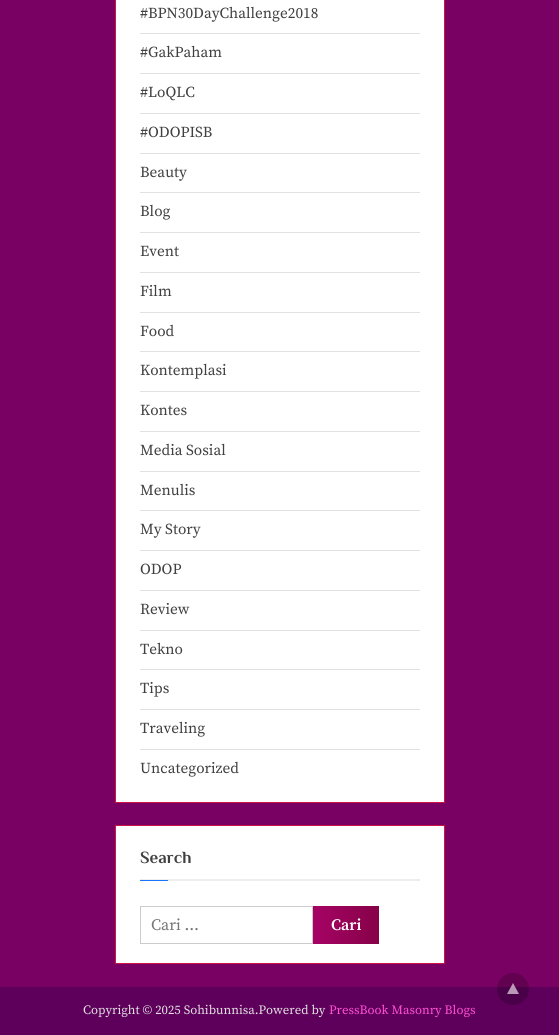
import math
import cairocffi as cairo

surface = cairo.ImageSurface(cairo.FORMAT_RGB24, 559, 1035)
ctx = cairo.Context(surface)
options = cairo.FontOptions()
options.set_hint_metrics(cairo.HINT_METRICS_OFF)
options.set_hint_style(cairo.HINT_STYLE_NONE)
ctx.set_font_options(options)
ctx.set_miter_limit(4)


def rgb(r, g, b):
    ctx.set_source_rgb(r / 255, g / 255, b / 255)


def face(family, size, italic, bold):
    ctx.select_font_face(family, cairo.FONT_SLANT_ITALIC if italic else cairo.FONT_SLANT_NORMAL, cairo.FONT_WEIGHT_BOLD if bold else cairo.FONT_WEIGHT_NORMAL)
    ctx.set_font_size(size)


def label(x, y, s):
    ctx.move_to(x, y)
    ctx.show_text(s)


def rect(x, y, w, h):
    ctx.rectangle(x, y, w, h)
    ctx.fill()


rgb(122, 1, 100)
ctx.paint()
rgb(255, 255, 255)
ctx.rectangle(115.5, -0.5, 329, 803)
ctx.fill_preserve()
rgb(206, 20, 70)
ctx.set_line_width(1)
ctx.stroke()
rgb(225, 225, 225)
rect(140, 33, 280, 1)
face('Source Serif Pro', 15.25, 0, 0)
rgb(64, 64, 64)
label(140, 18, '#BPN30DayChallenge2018')
rgb(225, 225, 225)
rect(140, 73, 280, 1)
rgb(64, 64, 64)
label(140, 57, '#GakPaham')
rgb(225, 225, 225)
rect(140, 113, 280, 1)
rgb(64, 64, 64)
label(140, 97, '#LoQLC')
rgb(225, 225, 225)
rect(140, 153, 280, 1)
rgb(64, 64, 64)
label(140, 137, '#ODOPISB')
rgb(225, 225, 225)
rect(140, 192, 280, 1)
rgb(64, 64, 64)
label(140, 177, 'Beauty')
rgb(225, 225, 225)
rect(140, 232, 280, 1)
rgb(64, 64, 64)
label(140, 216, 'Blog')
rgb(225, 225, 225)
rect(140, 272, 280, 1)
rgb(64, 64, 64)
label(140, 256, 'Event')
rgb(225, 225, 225)
rect(140, 312, 280, 1)
rgb(64, 64, 64)
label(140, 296, 'Film')
rgb(225, 225, 225)
rect(140, 351, 280, 1)
rgb(64, 64, 64)
label(140, 336, 'Food')
rgb(225, 225, 225)
rect(140, 391, 280, 1)
rgb(64, 64, 64)
label(140, 375, 'Kontemplasi')
rgb(225, 225, 225)
rect(140, 431, 280, 1)
rgb(64, 64, 64)
label(140, 415, 'Kontes')
rgb(225, 225, 225)
rect(140, 471, 280, 1)
rgb(64, 64, 64)
label(140, 455, 'Media Sosial')
rgb(225, 225, 225)
rect(140, 510, 280, 1)
rgb(64, 64, 64)
label(140, 495, 'Menulis')
rgb(225, 225, 225)
rect(140, 550, 280, 1)
rgb(64, 64, 64)
label(140, 534, 'My Story')
rgb(225, 225, 225)
rect(140, 590, 280, 1)
rgb(64, 64, 64)
label(140, 574, 'ODOP')
rgb(225, 225, 225)
rect(140, 630, 280, 1)
rgb(64, 64, 64)
label(140, 614, 'Review')
rgb(225, 225, 225)
rect(140, 669, 280, 1)
rgb(64, 64, 64)
label(140, 654, 'Tekno')
rgb(225, 225, 225)
rect(140, 709, 280, 1)
rgb(64, 64, 64)
label(140, 693, 'Tips')
rgb(225, 225, 225)
rect(140, 749, 280, 1)
rgb(64, 64, 64)
label(140, 733, 'Traveling')
label(140, 773, 'Uncategorized')
rgb(255, 255, 255)
ctx.rectangle(115.5, 825.5, 329, 138)
ctx.fill_preserve()
rgb(206, 20, 70)
ctx.stroke()
rgb(238, 238, 238)
rect(140, 879, 280, 2)
face('Philosopher', 17, 0, 1)
rgb(64, 64, 64)
label(140, 863, 'Search')
rgb(25, 116, 252)
rect(140, 880, 28, 1)
ctx.rectangle(140.5, 906.5, 172, 37)
rgb(204, 204, 204)
ctx.stroke()
face('Source Serif Pro', 16, 0, 0)
rgb(117, 117, 117)
label(151, 930, 'Cari …')
gradient = cairo.LinearGradient(191, 925, 315, 925)
gradient.add_color_stop_rgba(0, 0.647, 0.012, 0.392, 1)
gradient.add_color_stop_rgba(0.51, 0.529, 0.004, 0.282, 1)
gradient.add_color_stop_rgba(1, 0.647, 0.012, 0.392, 1)
ctx.set_source(gradient)
rect(313, 906, 2, 38)
gradient = cairo.LinearGradient(315, 925, 439, 925)
gradient.add_color_stop_rgba(0, 0.647, 0.012, 0.392, 1)
gradient.add_color_stop_rgba(0.51, 0.529, 0.004, 0.282, 1)
gradient.add_color_stop_rgba(1, 0.647, 0.012, 0.392, 1)
ctx.set_source(gradient)
rect(315, 906, 64, 38)
face('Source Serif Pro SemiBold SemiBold', 16, 0, 0)
rgb(255, 255, 255)
label(331, 930, 'Cari')
rgb(94, 0, 91)
rect(0, 987, 559, 48)
ctx.set_source_rgba(0, 0, 0, 0.21)
ctx.new_path()
ctx.arc(513, 989, 16, 0, 2 * math.pi)
ctx.fill()
ctx.set_source_rgba(1, 1, 1, 0.6)
ctx.new_path()
ctx.move_to(519, 994)
ctx.line_to(507, 994)
ctx.line_to(513, 983)
ctx.close_path()
ctx.fill()
face('Source Serif Pro', 12.75, 0, 0)
rgb(225, 225, 225)
label(83, 1014, 'Copyright © 2025 Sohibunnisa.Powered by')
rgb(255, 79, 211)
label(329, 1014, 'PressBook Masonry Blogs')
surface.write_to_png('render.png')
